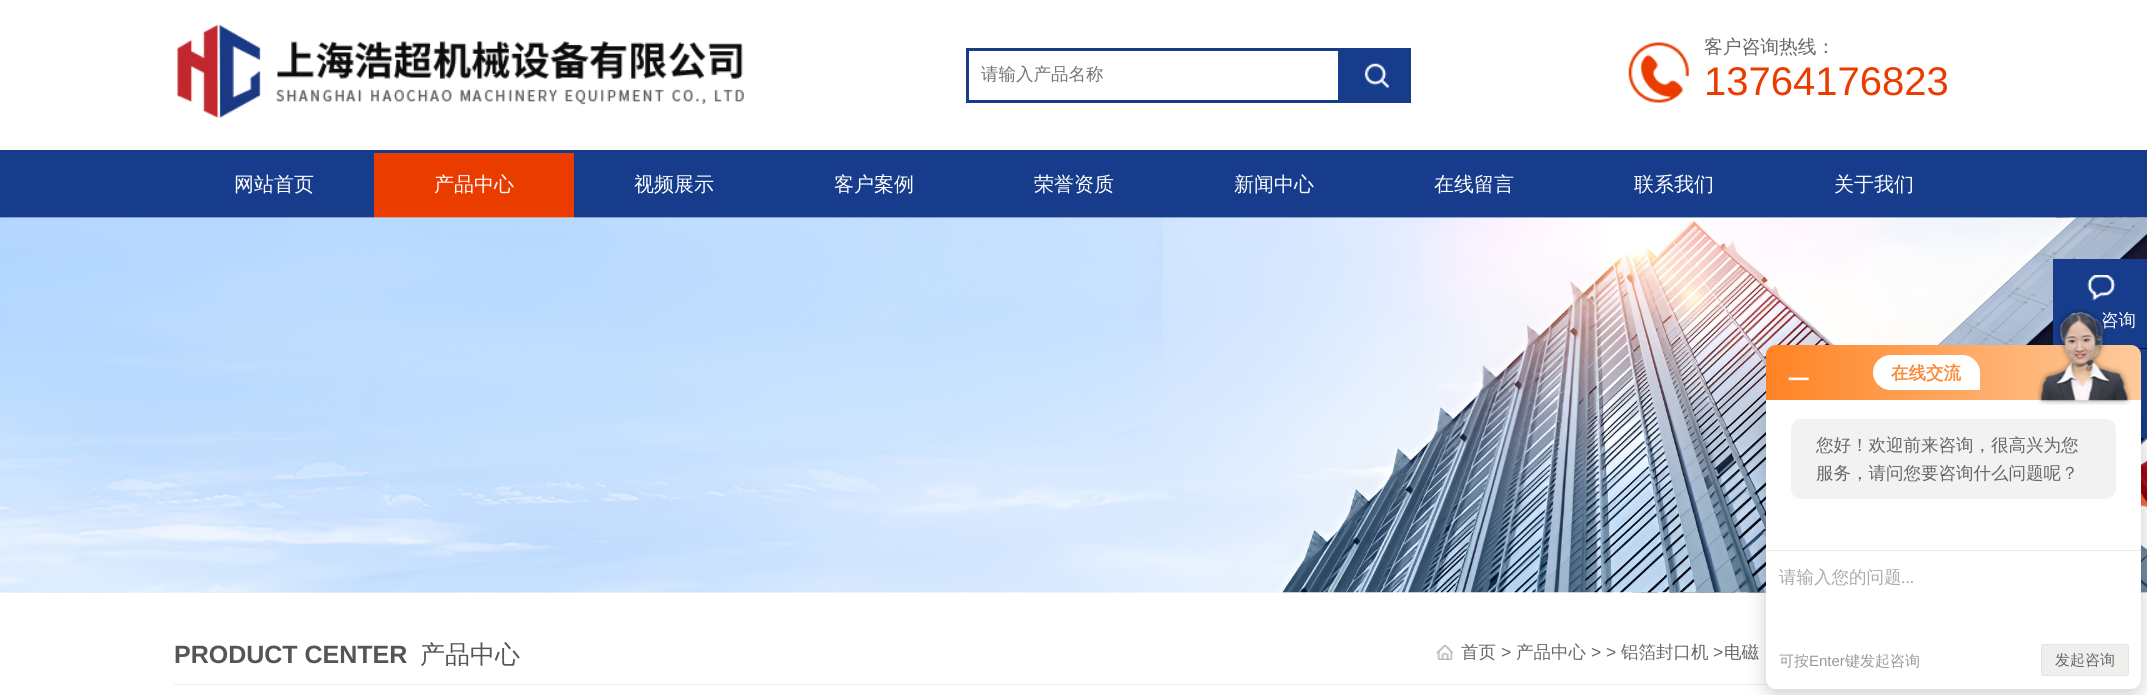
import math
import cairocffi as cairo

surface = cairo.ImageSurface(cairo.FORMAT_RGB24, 2147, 695)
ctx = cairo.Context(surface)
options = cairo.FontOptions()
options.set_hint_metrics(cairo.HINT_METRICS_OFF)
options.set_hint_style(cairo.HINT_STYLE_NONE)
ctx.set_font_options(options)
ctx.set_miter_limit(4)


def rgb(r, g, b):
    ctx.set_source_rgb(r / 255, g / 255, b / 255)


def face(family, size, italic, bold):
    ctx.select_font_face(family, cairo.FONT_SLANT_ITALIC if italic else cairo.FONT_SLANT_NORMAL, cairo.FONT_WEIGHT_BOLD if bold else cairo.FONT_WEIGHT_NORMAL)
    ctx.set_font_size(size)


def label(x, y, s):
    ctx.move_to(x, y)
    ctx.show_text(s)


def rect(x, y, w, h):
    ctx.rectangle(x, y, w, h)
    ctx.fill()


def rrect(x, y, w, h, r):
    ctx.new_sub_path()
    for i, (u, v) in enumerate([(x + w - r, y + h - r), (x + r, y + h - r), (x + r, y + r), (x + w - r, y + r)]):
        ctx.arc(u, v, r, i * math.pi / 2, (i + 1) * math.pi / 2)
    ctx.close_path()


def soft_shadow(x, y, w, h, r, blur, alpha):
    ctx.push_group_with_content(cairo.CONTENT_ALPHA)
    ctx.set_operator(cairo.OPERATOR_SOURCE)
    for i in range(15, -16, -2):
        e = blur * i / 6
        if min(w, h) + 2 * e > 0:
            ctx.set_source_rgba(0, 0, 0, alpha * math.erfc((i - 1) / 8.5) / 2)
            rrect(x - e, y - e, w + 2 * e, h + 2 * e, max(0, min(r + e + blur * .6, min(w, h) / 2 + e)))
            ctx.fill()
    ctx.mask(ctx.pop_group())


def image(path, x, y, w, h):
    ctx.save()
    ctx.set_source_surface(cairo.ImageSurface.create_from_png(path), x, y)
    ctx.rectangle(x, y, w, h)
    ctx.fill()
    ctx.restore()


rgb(255, 255, 255)
ctx.paint()
image('image0.png', 177, 24, 567, 94)
ctx.rectangle(967.5, 49.5, 372, 52)
rgb(22, 60, 139)
ctx.set_line_width(3)
ctx.stroke()
face('WenQuanYi Zen Hei Medium', 17.5, 0, 0)
rgb(117, 117, 117)
label(981, 80, '请输入产品名称')
rgb(22, 60, 139)
rect(1341, 48, 70, 55)
image('image1.png', 1364, 63, 25, 25)
image('image2.png', 1628, 42, 61, 61)
face('WenQuanYi Zen Hei Medium', 18.75, 0, 0)
rgb(102, 102, 102)
label(1704, 53, '客户咨询热线：')
face('Liberation Sans', 40, 0, 0)
rgb(235, 60, 0)
label(1704, 95, '13764176823')
rgb(22, 60, 139)
rect(0, 150, 2147, 68)
face('WenQuanYi Zen Hei Medium', 20, 0, 0)
rgb(255, 255, 255)
label(234, 191, '网站首页')
rgb(235, 60, 0)
rect(374, 153, 200, 65)
rgb(255, 255, 255)
label(434, 191, '产品中心')
label(634, 191, '视频展示')
label(834, 191, '客户案例')
label(1034, 191, '荣誉资质')
label(1234, 191, '新闻中心')
label(1434, 191, '在线留言')
label(1634, 191, '联系我们')
label(1834, 191, '关于我们')
image('image3.png', 0, 217, 2147, 376)
image('image4.png', 0, 217, 2147, 376)
rgb(22, 60, 139)
rect(2053, 259, 94, 89)
image('image5.png', 2087, 275, 29, 26)
face('WenQuanYi Zen Hei Medium', 17.5, 0, 0)
rgb(255, 255, 255)
label(2101, 326, '咨询')
rgb(22, 60, 139)
rect(2139, 349, 8, 89)
rgb(239, 239, 239)
rect(174, 684, 1594, 1)
face('Liberation Sans', 25, 0, 1)
rgb(85, 85, 85)
label(174, 663, 'PRODUCT CENTER')
face('WenQuanYi Zen Hei Medium', 25, 0, 0)
label(420, 663, '产品中心')
image('image6.png', 1436, 645, 17, 15)
face('WenQuanYi Zen Hei Medium', 17.5, 0, 0)
rgb(102, 102, 102)
label(1461, 658, '首页')
face('Liberation Sans', 17.5, 0, 0)
label(1501, 658, '>')
face('WenQuanYi Zen Hei Medium', 17.5, 0, 0)
label(1516, 658, '产品中心')
face('Liberation Sans', 17.5, 0, 0)
label(1591, 658, '> >')
face('WenQuanYi Zen Hei Medium', 17.5, 0, 0)
label(1621, 658, '铝箔封口机')
face('Liberation Sans', 17.5, 0, 0)
label(1713, 658, '>')
face('WenQuanYi Zen Hei Medium', 17.5, 0, 0)
label(1724, 658, '电磁')
rgb(0, 0, 0)
soft_shadow(1766, 405, 375, 289, 10, 10, 0.2)
gradient = cairo.LinearGradient(1766, 373, 2141, 373)
gradient.add_color_stop_rgba(0, 1, 0.514, 0.141, 1)
gradient.add_color_stop_rgba(1, 0.996, 0.796, 0.612, 1)
ctx.set_source(gradient)
ctx.new_path()
ctx.move_to(1776, 345)
ctx.line_to(2131, 345)
ctx.curve_to(2136.5, 345, 2141, 349.5, 2141, 355)
ctx.line_to(2141, 400)
ctx.line_to(1766, 400)
ctx.line_to(1766, 355)
ctx.curve_to(1766, 349.5, 1770.5, 345, 1776, 345)
ctx.close_path()
ctx.fill()
image('image7.png', 1788, 377, 21, 4)
rgb(255, 255, 255)
ctx.new_path()
ctx.move_to(1890.5, 355)
ctx.line_to(1962.5, 355)
ctx.curve_to(1972, 355, 1980, 363, 1980, 372.5)
ctx.line_to(1980, 390)
ctx.line_to(1890.5, 390)
ctx.curve_to(1881, 390, 1873, 382, 1873, 372.5)
ctx.curve_to(1873, 363, 1881, 355, 1890.5, 355)
ctx.close_path()
ctx.fill()
face('WenQuanYi Zen Hei', 17.5, 0, 1)
rgb(251, 139, 54)
label(1891, 379, '在线交流')
rgb(255, 255, 255)
ctx.new_path()
ctx.move_to(1766, 400)
ctx.line_to(2141, 400)
ctx.line_to(2141, 679)
ctx.curve_to(2141, 684.5, 2136.5, 689, 2131, 689)
ctx.line_to(1776, 689)
ctx.curve_to(1770.5, 689, 1766, 684.5, 1766, 679)
ctx.close_path()
ctx.fill()
image('image8.png', 2037, 308, 95, 97)
rgb(242, 242, 242)
rrect(1791, 419, 325, 80, 10)
ctx.fill()
face('WenQuanYi Zen Hei Medium', 17.5, 0, 0)
rgb(102, 102, 102)
label(1816, 451, '您好！欢迎前来咨询，很高兴为您')
label(1816, 479, '服务，请问您要咨询什么问题呢？')
rgb(234, 234, 234)
rect(1766, 550, 375, 1)
rgb(170, 170, 170)
label(1779, 583, '请输入您的问题')
face('Liberation Serif', 17.5, 0, 0)
label(1901, 583, '...')
face('WenQuanYi Zen Hei Medium', 15, 0, 0)
rgb(153, 153, 153)
label(1779, 666, '可按')
face('Liberation Sans', 15, 0, 0)
label(1809, 666, 'Enter')
face('WenQuanYi Zen Hei Medium', 15, 0, 0)
label(1845, 666, '键发起咨询')
rgb(240, 239, 237)
rrect(2041.5, 644.5, 87, 31, 2)
ctx.fill_preserve()
rgb(226, 226, 226)
ctx.set_line_width(1)
ctx.stroke()
rgb(102, 102, 102)
label(2055, 665, '发起咨询')
surface.write_to_png('render.png')
